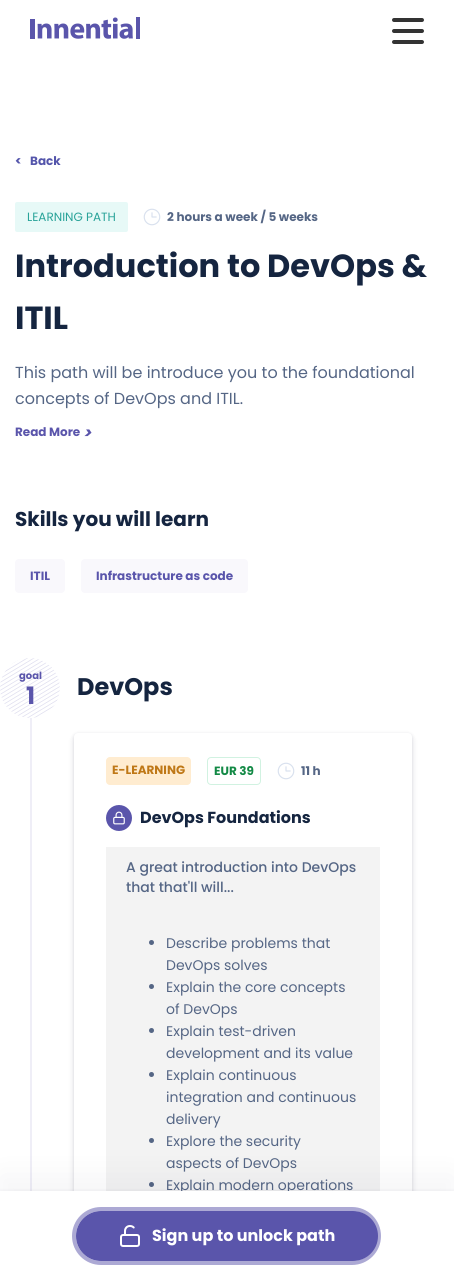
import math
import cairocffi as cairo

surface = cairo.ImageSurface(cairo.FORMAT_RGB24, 454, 1281)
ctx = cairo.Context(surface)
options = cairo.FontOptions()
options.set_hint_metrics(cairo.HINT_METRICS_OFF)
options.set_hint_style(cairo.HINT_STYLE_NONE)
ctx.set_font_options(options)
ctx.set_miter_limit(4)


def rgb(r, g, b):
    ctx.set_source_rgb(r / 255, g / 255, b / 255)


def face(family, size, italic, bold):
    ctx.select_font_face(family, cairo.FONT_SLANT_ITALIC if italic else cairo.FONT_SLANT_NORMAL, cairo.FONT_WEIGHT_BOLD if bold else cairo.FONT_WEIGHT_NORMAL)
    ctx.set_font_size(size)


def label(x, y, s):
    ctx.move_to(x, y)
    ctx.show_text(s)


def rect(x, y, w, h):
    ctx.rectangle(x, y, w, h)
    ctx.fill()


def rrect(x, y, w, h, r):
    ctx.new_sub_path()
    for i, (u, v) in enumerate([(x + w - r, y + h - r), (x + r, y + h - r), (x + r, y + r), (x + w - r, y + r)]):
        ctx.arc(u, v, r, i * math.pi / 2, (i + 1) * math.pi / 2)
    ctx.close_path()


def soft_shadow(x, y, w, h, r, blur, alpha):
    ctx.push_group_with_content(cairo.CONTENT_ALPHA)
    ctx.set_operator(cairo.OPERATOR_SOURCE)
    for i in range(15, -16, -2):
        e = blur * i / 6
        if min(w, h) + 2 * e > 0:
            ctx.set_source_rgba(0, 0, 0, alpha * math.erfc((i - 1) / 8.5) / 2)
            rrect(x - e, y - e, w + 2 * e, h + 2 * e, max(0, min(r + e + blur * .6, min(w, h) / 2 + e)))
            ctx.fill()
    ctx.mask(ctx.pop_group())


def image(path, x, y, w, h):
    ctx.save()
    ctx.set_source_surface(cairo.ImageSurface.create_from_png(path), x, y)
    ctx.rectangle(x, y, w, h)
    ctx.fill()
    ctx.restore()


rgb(255, 255, 255)
ctx.paint()
image('image0.png', 30, 17, 110, 22)
rgb(51, 51, 51)
rrect(392, 18, 32, 4, 2)
ctx.fill()
rrect(392, 29, 32, 4, 2)
ctx.fill()
rrect(392, 40, 32, 4, 2)
ctx.fill()
face('Poppins', 12, 0, 1)
rgb(84, 85, 171)
label(15, 165, '<')
label(30, 165, 'Back')
rgb(231, 249, 247)
rrect(15, 202, 113, 30, 2)
ctx.fill()
face('Poppins', 12, 0, 0)
rgb(41, 163, 153)
label(27, 221, 'LEARNING PATH')
image('image1.png', 143, 208, 18, 18)
face('Poppins', 12, 0, 1)
rgb(85, 102, 133)
label(167, 221, '2 hours a week / 5 weeks')
face('Poppins', 32, 0, 1)
rgb(21, 37, 64)
label(15, 277, 'Introduction to DevOps &')
label(15, 329, 'ITIL')
face('Poppins', 16, 0, 0)
rgb(85, 102, 133)
label(15, 378, 'This path will be introduce you to the foundational')
label(15, 404, 'concepts of DevOps and ITIL.')
face('Poppins', 12, 0, 1)
rgb(90, 85, 171)
label(15, 436, 'Read More')
face('Poppins', 15, 1, 1)
label(83, 438, '>')
face('Poppins', 20, 0, 1)
rgb(21, 37, 64)
label(15, 526, 'Skills you will learn')
rgb(249, 248, 252)
rrect(15, 559, 50, 34, 4)
ctx.fill()
face('Poppins', 12, 0, 1)
rgb(90, 85, 171)
label(30, 580, 'ITIL')
rgb(249, 248, 252)
rrect(81, 559, 167, 34, 4)
ctx.fill()
rgb(90, 85, 171)
label(96, 580, 'Infrastructure as code')
rgb(239, 238, 247)
rect(30, 718, 2, 473)
image('image2.png', 0, 658, 60, 60)
face('Poppins', 10, 0, 1)
rgb(90, 85, 171)
label(19, 679, 'goal')
face('Poppins', 24, 0, 1)
label(26, 704, '1')
rgb(21, 37, 64)
label(77, 695, 'DevOps')
rgb(0, 8, 32)
soft_shadow(74, 737, 338, 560, 4, 4, 0.08)
soft_shadow(74, 734, 338, 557, 4, 2, 0.12)
rgb(255, 255, 255)
rrect(74, 733, 338, 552, 4)
ctx.fill()
rgb(255, 236, 208)
rrect(106, 757, 85, 28, 4)
ctx.fill()
face('Poppins', 12, 0, 1)
rgb(191, 120, 23)
label(112, 774, 'E-LEARNING')
rrect(207.5, 757.5, 53, 27, 3.5)
rgb(209, 242, 225)
ctx.set_line_width(1)
ctx.stroke()
rgb(18, 137, 69)
label(214, 775, 'EUR 39')
image('image1.png', 277, 762, 18, 18)
rgb(85, 102, 133)
label(301, 775, '11 h')
rgb(90, 85, 171)
ctx.new_path()
ctx.arc(119, 818, 13, 0, 2 * math.pi)
ctx.fill()
image('image3.png', 113, 811, 12, 14)
face('Poppins', 16, 0, 1)
rgb(21, 37, 64)
label(140, 823, 'DevOps Foundations')
rgb(243, 243, 243)
rect(106, 847, 274, 344)
face('Poppins Medium', 14, 0, 0)
rgb(85, 102, 133)
label(126, 872, 'A great introduction into DevOps')
label(126, 892, 'that that\'ll will...')
ctx.new_path()
ctx.arc(151.5, 942.5, 2.5, 0, 2 * math.pi)
ctx.fill()
face('Poppins', 14, 0, 0)
label(166, 948, 'Describe problems that')
label(166, 970, 'DevOps solves')
ctx.new_path()
ctx.arc(151.5, 986.5, 2.5, 0, 2 * math.pi)
ctx.fill()
label(166, 992, 'Explain the core concepts')
label(166, 1014, 'of DevOps')
ctx.new_path()
ctx.arc(151.5, 1030.5, 2.5, 0, 2 * math.pi)
ctx.fill()
label(166, 1036, 'Explain test-driven')
label(166, 1058, 'development and its value')
ctx.new_path()
ctx.arc(151.5, 1074.5, 2.5, 0, 2 * math.pi)
ctx.fill()
label(166, 1080, 'Explain continuous')
label(166, 1102, 'integration and continuous')
label(166, 1124, 'delivery')
ctx.new_path()
ctx.arc(151.5, 1140.5, 2.5, 0, 2 * math.pi)
ctx.fill()
label(166, 1146, 'Explore the security')
label(166, 1168, 'aspects of DevOps')
ctx.new_path()
ctx.arc(151.5, 1184.5, 2.5, 0, 2 * math.pi)
ctx.fill()
label(166, 1190, 'Explain modern operations')
rgb(0, 8, 32)
soft_shadow(0, 1175, 454, 90, 0, 16, 0.04)
soft_shadow(0, 1190, 454, 90, 0, 2, 0.04)
rgb(255, 255, 255)
rect(0, 1191, 454, 90)
rgb(90, 85, 171)
rrect(77, 1212, 300, 48, 24)
ctx.fill_preserve()
ctx.set_line_width(2)
ctx.stroke()
image('image4.png', 120, 1225, 20, 22)
rrect(74, 1209, 305, 54, 27)
ctx.set_source_rgba(0.353, 0.333, 0.671, 0.5)
ctx.set_line_width(4)
ctx.stroke()
face('Poppins', 16, 0, 1)
rgb(255, 255, 255)
label(152, 1241, 'Sign up to unlock path')
surface.write_to_png('render.png')
